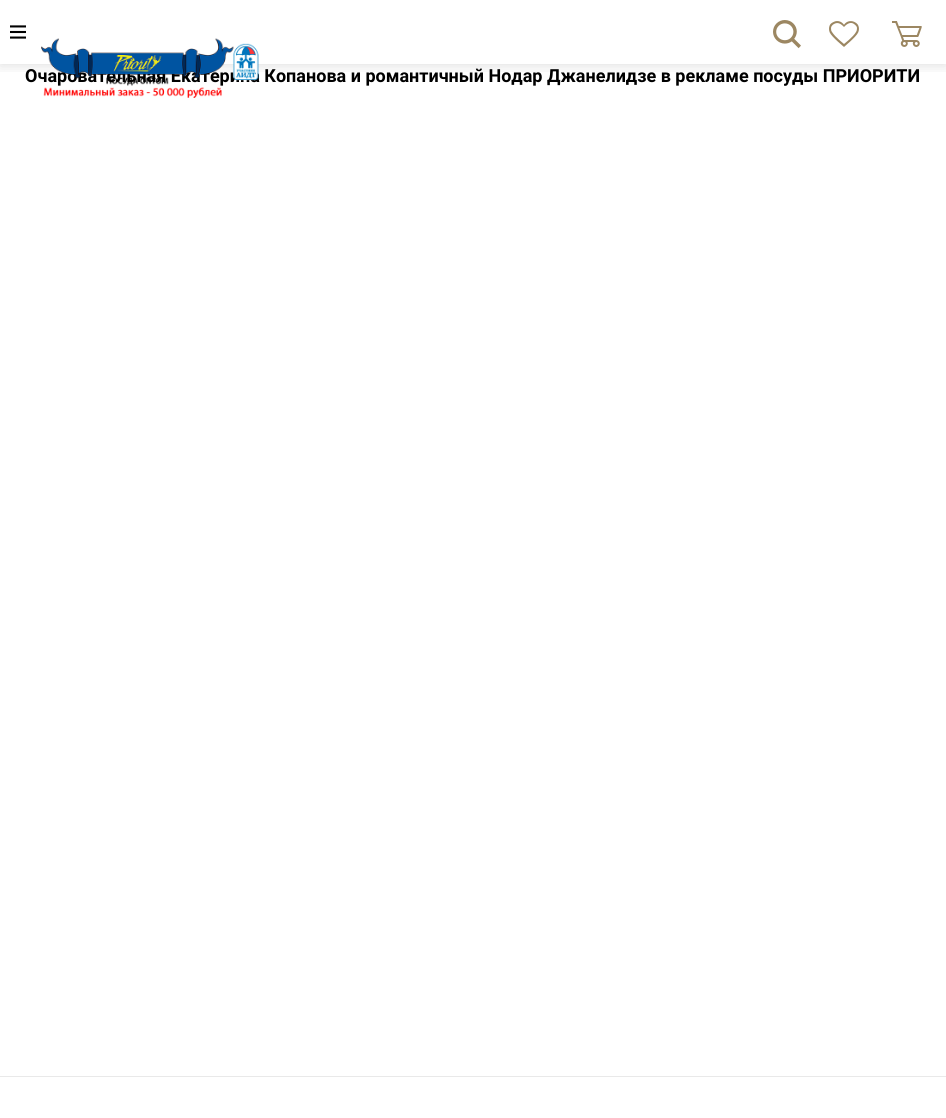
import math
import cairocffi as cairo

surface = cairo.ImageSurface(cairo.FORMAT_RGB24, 946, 1118)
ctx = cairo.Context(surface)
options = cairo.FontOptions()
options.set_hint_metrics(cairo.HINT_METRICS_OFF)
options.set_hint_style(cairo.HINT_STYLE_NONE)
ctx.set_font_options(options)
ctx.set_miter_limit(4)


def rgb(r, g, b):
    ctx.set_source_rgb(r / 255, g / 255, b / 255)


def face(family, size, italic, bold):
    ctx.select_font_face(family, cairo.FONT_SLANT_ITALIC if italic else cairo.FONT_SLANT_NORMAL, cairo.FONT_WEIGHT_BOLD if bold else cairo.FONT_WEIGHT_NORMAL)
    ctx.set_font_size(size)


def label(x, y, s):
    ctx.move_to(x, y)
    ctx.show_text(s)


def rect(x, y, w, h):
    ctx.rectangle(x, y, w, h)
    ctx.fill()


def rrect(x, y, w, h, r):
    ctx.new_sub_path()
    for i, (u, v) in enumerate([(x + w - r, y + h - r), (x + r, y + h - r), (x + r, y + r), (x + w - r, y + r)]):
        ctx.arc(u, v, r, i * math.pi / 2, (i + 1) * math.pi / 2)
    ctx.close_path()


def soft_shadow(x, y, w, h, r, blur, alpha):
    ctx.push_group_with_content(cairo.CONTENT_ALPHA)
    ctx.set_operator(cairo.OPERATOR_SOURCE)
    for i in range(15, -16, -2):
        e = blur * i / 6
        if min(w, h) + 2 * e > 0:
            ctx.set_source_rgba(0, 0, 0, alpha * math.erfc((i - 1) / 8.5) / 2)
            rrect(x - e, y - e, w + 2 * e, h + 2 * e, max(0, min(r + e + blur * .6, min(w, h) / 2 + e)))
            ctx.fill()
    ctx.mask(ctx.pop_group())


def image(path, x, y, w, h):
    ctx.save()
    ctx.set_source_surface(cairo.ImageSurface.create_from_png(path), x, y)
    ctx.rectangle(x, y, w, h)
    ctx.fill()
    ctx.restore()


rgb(255, 255, 255)
ctx.paint()
ctx.save()
ctx.rectangle(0, 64, 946, 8)
ctx.clip()
rgb(5, 5, 5)
soft_shadow(0, 0, 946, 64, 0, 7.5, 0.15)
ctx.restore()
image('image0.png', 10, 25, 16, 14)
image('image1.png', 773, 20, 28, 29)
image('image2.png', 829, 21, 30, 26)
image('image3.png', 892, 21, 30, 26)
face('Roboto', 18, 0, 1)
rgb(0, 0, 0)
label(25, 82, 'Очаровательная Екатерина Копанова и романтичный Нодар Джанелидзе в рекламе посуды ПРИОРИТИ')
image('image4.png', 41, 38, 218, 60)
rgb(233, 233, 233)
rect(0, 1076, 946, 1)
surface.write_to_png('render.png')
